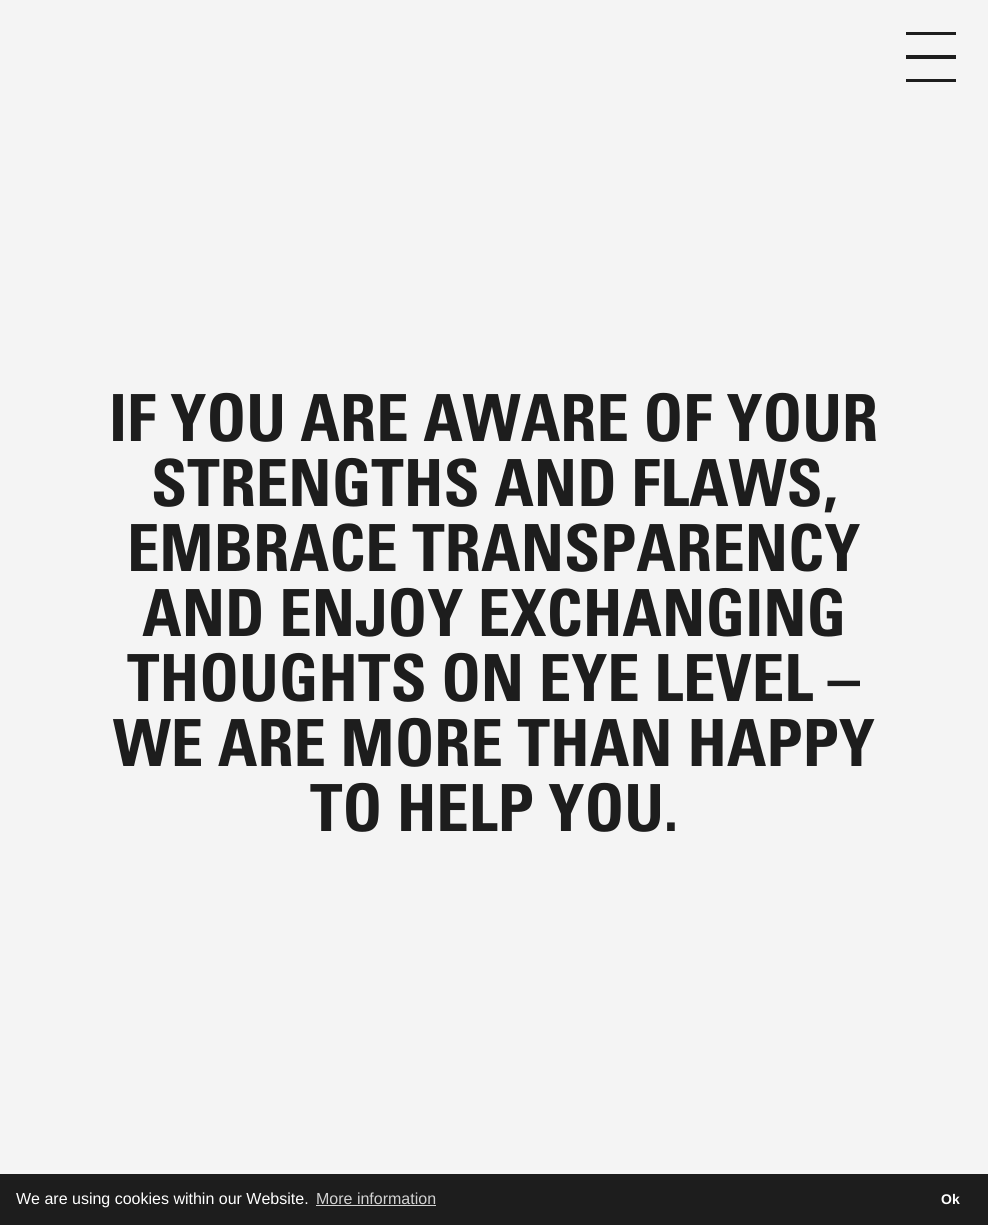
import math
import cairocffi as cairo

surface = cairo.ImageSurface(cairo.FORMAT_RGB24, 988, 1225)
ctx = cairo.Context(surface)
options = cairo.FontOptions()
options.set_hint_metrics(cairo.HINT_METRICS_OFF)
options.set_hint_style(cairo.HINT_STYLE_NONE)
ctx.set_font_options(options)
ctx.set_miter_limit(4)


def rgb(r, g, b):
    ctx.set_source_rgb(r / 255, g / 255, b / 255)


def face(family, size, italic, bold):
    ctx.select_font_face(family, cairo.FONT_SLANT_ITALIC if italic else cairo.FONT_SLANT_NORMAL, cairo.FONT_WEIGHT_BOLD if bold else cairo.FONT_WEIGHT_NORMAL)
    ctx.set_font_size(size)


def label(x, y, s):
    ctx.move_to(x, y)
    ctx.show_text(s)


def rect(x, y, w, h):
    ctx.rectangle(x, y, w, h)
    ctx.fill()


rgb(244, 244, 244)
ctx.paint()
rgb(29, 29, 29)
rect(906, 55, 50, 4)
rect(906, 32, 50, 3)
rect(906, 79, 50, 3)
face('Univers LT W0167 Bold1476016', 65, 0, 1)
label(109, 441, 'IF YOU ARE AWARE OF YOUR')
label(151, 506, 'STRENGTHS AND FLAWS,')
label(127, 571, 'EMBRACE TRANSPARENCY')
label(142, 636, 'AND ENJOY EXCHANGING')
label(127, 701, 'THOUGHTS ON EYE LEVEL –')
label(113, 766, 'WE ARE MORE THAN HAPPY')
label(310, 831, 'TO HELP YOU.')
rect(0, 1174, 988, 51)
face('Liberation Sans', 16, 0, 0)
rgb(255, 255, 255)
label(16, 1204, 'We are using cookies within our Website.')
rgb(210, 210, 210)
label(316, 1204, 'More information')
rect(316, 1205, 120, 1)
face('Liberation Sans', 14, 0, 1)
rgb(255, 255, 255)
label(941, 1204, 'Ok')
surface.write_to_png('render.png')
